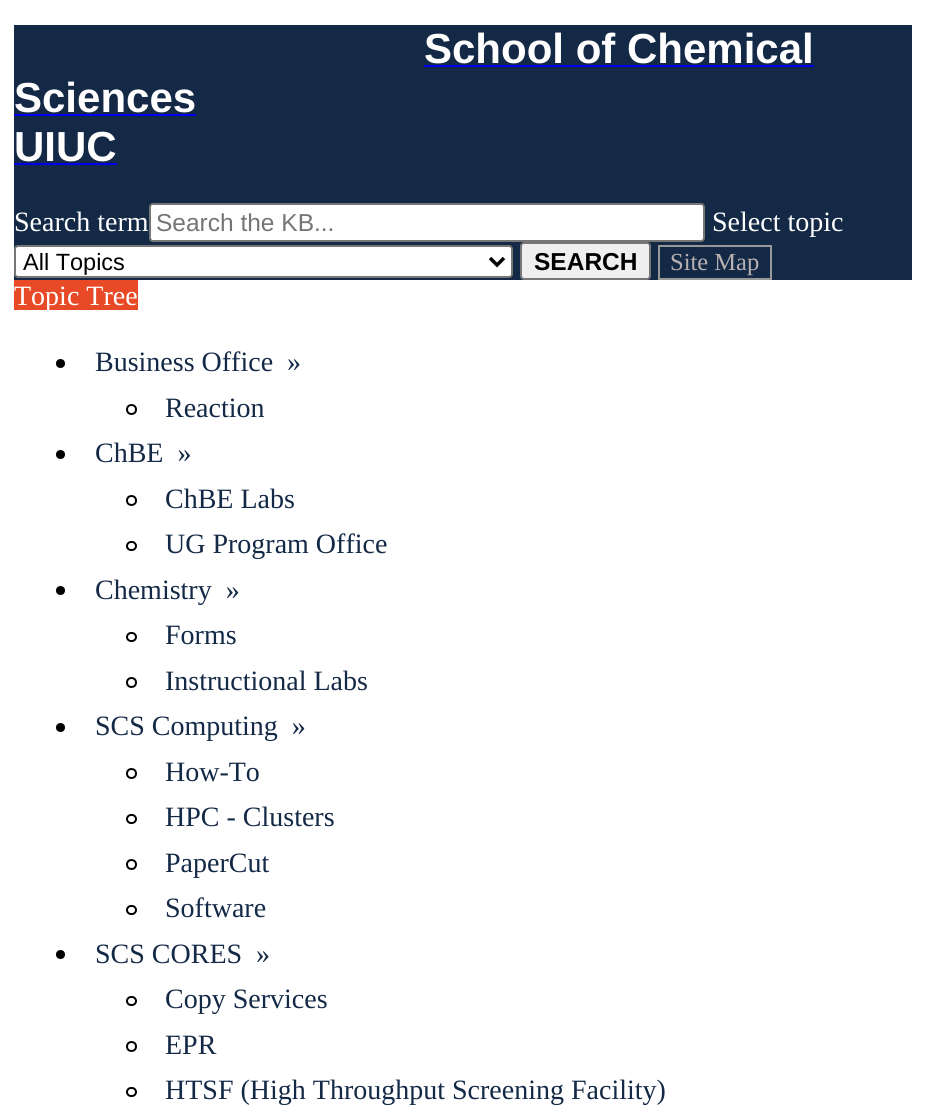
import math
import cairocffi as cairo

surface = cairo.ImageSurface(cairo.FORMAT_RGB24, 925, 1115)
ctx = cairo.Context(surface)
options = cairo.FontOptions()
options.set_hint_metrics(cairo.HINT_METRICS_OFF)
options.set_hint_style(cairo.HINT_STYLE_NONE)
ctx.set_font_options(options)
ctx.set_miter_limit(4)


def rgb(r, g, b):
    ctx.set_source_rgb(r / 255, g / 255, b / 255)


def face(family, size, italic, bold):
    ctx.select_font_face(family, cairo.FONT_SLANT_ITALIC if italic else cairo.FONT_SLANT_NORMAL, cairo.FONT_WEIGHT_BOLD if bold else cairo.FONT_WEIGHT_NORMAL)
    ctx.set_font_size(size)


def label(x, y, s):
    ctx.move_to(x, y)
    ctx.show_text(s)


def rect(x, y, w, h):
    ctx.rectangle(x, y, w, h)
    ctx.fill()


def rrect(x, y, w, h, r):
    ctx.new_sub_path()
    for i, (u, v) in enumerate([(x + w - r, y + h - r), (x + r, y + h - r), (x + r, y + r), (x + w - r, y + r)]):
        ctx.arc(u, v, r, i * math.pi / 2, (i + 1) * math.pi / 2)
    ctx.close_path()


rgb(255, 255, 255)
ctx.paint()
rgb(19, 41, 70)
rect(14, 25, 898, 255)
face('Liberation Sans', 42, 0, 1)
rgb(255, 255, 255)
label(424, 63, 'School of Chemical')
rgb(0, 0, 238)
rect(424, 65, 390, 2)
rgb(255, 255, 255)
label(14, 112, 'Sciences')
rgb(0, 0, 238)
rect(14, 114, 182, 2)
rgb(255, 255, 255)
label(14, 161, 'UIUC')
rgb(0, 0, 238)
rect(14, 163, 103, 2)
face('Liberation Serif', 28, 0, 0)
rgb(255, 255, 255)
label(14, 231, 'Search term')
rrect(150, 204, 554, 37, 3)
ctx.fill_preserve()
rgb(118, 118, 118)
ctx.stroke()
face('Liberation Sans', 24.5, 0, 0)
rgb(117, 117, 117)
label(156, 231, 'Search the KB...')
face('Liberation Serif', 28, 0, 0)
rgb(255, 255, 255)
label(712, 231, 'Select topic')
rrect(15, 246, 497, 31, 3)
ctx.fill_preserve()
rgb(118, 118, 118)
ctx.stroke()
ctx.new_path()
ctx.move_to(490, 258)
ctx.line_to(497, 265)
ctx.line_to(504, 258)
rgb(0, 0, 0)
ctx.set_line_width(3.5)
ctx.stroke()
face('Liberation Sans', 23.5, 0, 0)
label(23, 270, 'All Topics')
rgb(239, 239, 239)
rrect(521, 243, 129, 36, 3)
ctx.fill_preserve()
rgb(118, 118, 118)
ctx.set_line_width(2)
ctx.stroke()
face('Liberation Sans', 24.5, 0, 1)
rgb(0, 0, 0)
label(534, 270, 'SEARCH')
ctx.rectangle(659, 246, 112, 33)
rgb(153, 153, 153)
ctx.stroke()
face('Liberation Serif', 24.5, 0, 0)
rgb(183, 177, 177)
label(670, 270, 'Site Map')
rgb(232, 74, 39)
rect(14, 280, 124, 30)
face('Liberation Serif', 28, 0, 0)
rgb(255, 255, 255)
label(14, 305, 'Topic Tree')
rgb(0, 0, 0)
ctx.new_path()
ctx.arc(60.5, 363.5, 4.5, 0, 2 * math.pi)
ctx.fill()
rgb(19, 41, 70)
label(95, 371, 'Business Office  »')
ctx.new_path()
ctx.arc(131.5, 409.5, 4.5, 0, 2 * math.pi)
rgb(0, 0, 0)
ctx.stroke()
rgb(19, 41, 70)
label(165, 417, 'Reaction')
rgb(0, 0, 0)
ctx.new_path()
ctx.arc(60.5, 454.5, 4.5, 0, 2 * math.pi)
ctx.fill()
rgb(19, 41, 70)
label(95, 462, 'ChBE  »')
ctx.new_path()
ctx.arc(131.5, 500.5, 4.5, 0, 2 * math.pi)
rgb(0, 0, 0)
ctx.stroke()
rgb(19, 41, 70)
label(165, 508, 'ChBE Labs')
rrect(127, 542, 9, 8, 4)
rgb(0, 0, 0)
ctx.stroke()
rgb(19, 41, 70)
label(165, 553, 'UG Program Office')
rgb(0, 0, 0)
ctx.new_path()
ctx.arc(60.5, 590.5, 4.5, 0, 2 * math.pi)
ctx.fill()
rgb(19, 41, 70)
label(95, 599, 'Chemistry  »')
rrect(127, 633, 9, 8, 4)
rgb(0, 0, 0)
ctx.stroke()
rgb(19, 41, 70)
label(165, 644, 'Forms')
ctx.new_path()
ctx.arc(131.5, 682.5, 4.5, 0, 2 * math.pi)
rgb(0, 0, 0)
ctx.stroke()
rgb(19, 41, 70)
label(165, 690, 'Instructional Labs')
rgb(0, 0, 0)
ctx.new_path()
ctx.arc(60.5, 727.5, 4.5, 0, 2 * math.pi)
ctx.fill()
rgb(19, 41, 70)
label(95, 735, 'SCS Computing  »')
ctx.new_path()
ctx.arc(131.5, 773.5, 4.5, 0, 2 * math.pi)
rgb(0, 0, 0)
ctx.stroke()
rgb(19, 41, 70)
label(165, 781, 'How-To')
rrect(127, 815, 9, 8, 4)
rgb(0, 0, 0)
ctx.stroke()
rgb(19, 41, 70)
label(165, 826, 'HPC - Clusters')
ctx.new_path()
ctx.arc(131.5, 864.5, 4.5, 0, 2 * math.pi)
rgb(0, 0, 0)
ctx.stroke()
rgb(19, 41, 70)
label(165, 872, 'PaperCut')
rrect(127, 906, 9, 8, 4)
rgb(0, 0, 0)
ctx.stroke()
rgb(19, 41, 70)
label(165, 917, 'Software')
rgb(0, 0, 0)
ctx.new_path()
ctx.arc(60.5, 954.5, 4.5, 0, 2 * math.pi)
ctx.fill()
rgb(19, 41, 70)
label(95, 963, 'SCS CORES  »')
rrect(127, 997, 9, 8, 4)
rgb(0, 0, 0)
ctx.stroke()
rgb(19, 41, 70)
label(165, 1008, 'Copy Services')
ctx.new_path()
ctx.arc(131.5, 1046.5, 4.5, 0, 2 * math.pi)
rgb(0, 0, 0)
ctx.stroke()
rgb(19, 41, 70)
label(165, 1054, 'EPR')
rrect(127, 1088, 9, 8, 4)
rgb(0, 0, 0)
ctx.stroke()
rgb(19, 41, 70)
label(165, 1099, 'HTSF (High Throughput Screening Facility)')
surface.write_to_png('render.png')
